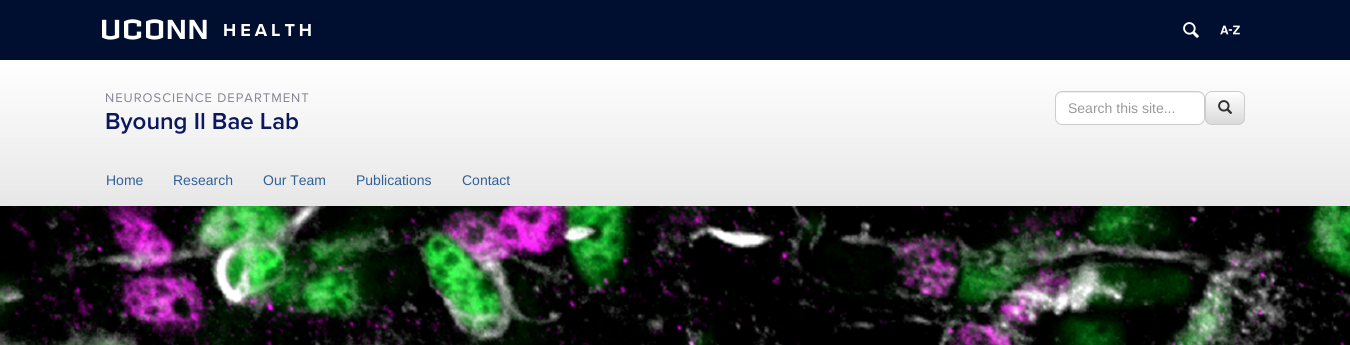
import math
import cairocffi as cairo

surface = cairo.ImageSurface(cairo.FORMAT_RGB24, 1350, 345)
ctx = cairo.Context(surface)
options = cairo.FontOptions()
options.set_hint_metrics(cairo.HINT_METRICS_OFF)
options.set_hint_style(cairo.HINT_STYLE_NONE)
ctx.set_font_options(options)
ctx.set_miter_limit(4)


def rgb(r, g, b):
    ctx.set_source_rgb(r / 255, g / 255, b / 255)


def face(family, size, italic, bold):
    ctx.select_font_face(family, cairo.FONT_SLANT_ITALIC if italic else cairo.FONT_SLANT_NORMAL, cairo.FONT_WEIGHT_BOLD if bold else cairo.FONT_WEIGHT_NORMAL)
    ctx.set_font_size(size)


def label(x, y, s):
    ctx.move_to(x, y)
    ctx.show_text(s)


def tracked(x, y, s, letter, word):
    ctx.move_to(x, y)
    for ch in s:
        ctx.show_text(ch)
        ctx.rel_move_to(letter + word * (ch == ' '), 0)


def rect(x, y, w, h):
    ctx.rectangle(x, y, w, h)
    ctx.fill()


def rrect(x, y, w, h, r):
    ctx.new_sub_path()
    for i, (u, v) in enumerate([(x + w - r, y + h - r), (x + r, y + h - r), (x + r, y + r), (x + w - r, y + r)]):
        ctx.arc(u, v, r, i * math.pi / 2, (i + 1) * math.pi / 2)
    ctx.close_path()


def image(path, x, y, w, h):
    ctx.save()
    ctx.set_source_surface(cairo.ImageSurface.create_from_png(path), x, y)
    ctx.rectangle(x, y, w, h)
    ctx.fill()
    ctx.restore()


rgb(0, 14, 47)
ctx.paint()
rgb(255, 255, 255)
rect(0, 60, 1350, 1)
face('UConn', 32, 0, 0)
tracked(102, 39, 'UCONN', 3, 0)
face('Proxima Nova', 18, 0, 1)
tracked(223, 36, 'HEALTH', 4, 0)
image('image0.png', 1183, 22, 16, 16)
image('image1.png', 1220, 25, 20, 10)
gradient = cairo.LinearGradient(675, 61, 675, 206)
gradient.add_color_stop_rgba(0, 1, 1, 1, 1)
gradient.add_color_stop_rgba(1, 0.906, 0.906, 0.906, 1)
ctx.set_source(gradient)
rect(0, 61, 1350, 145)
face('Proxima Nova', 13, 0, 0)
rgb(134, 134, 149)
tracked(105, 102, 'NEUROSCIENCE DEPARTMENT', 1, 0)
face('Proxima Nova SemiBold', 24, 0, 0)
rgb(11, 24, 96)
label(105, 129, 'Byoung Il Bae Lab')
rgb(255, 255, 255)
rrect(1055, 91, 150, 34, 7)
ctx.fill()
rgb(236, 236, 236)
ctx.new_path()
ctx.move_to(1062, 93)
ctx.line_to(1198, 93)
ctx.curve_to(1201, 93, 1204, 96, 1204, 99)
ctx.line_to(1204, 98)
ctx.curve_to(1204, 95, 1201, 92, 1198, 92)
ctx.line_to(1062, 92)
ctx.curve_to(1059, 92, 1056, 95, 1056, 98)
ctx.line_to(1056, 99)
ctx.curve_to(1056, 96, 1059, 93, 1062, 93)
ctx.close_path()
ctx.fill()
rrect(1055.5, 91.5, 149, 33, 6.5)
rgb(204, 204, 204)
ctx.set_line_width(1)
ctx.stroke()
face('Liberation Sans', 14, 0, 0)
rgb(153, 153, 153)
label(1068, 113, 'Search this site...')
ctx.save()
rrect(1205, 91, 40, 34, 7)
ctx.clip()
gradient = cairo.LinearGradient(1225, 92, 1225, 124)
gradient.add_color_stop_rgba(0, 1, 1, 1, 1)
gradient.add_color_stop_rgba(1, 0.851, 0.851, 0.851, 1)
ctx.set_source(gradient)
rect(1205, 92, 40, 32)
ctx.restore()
rrect(1205.5, 91.5, 39, 33, 6.5)
rgb(204, 204, 204)
ctx.stroke()
image('image2.png', 1218, 100, 15, 14)
rgb(48, 96, 149)
label(106, 185, 'Home')
label(173, 185, 'Research')
label(263, 185, 'Our Team')
label(356, 185, 'Publications')
label(462, 185, 'Contact')
image('image3.png', 0, 206, 1350, 139)
surface.write_to_png('render.png')
